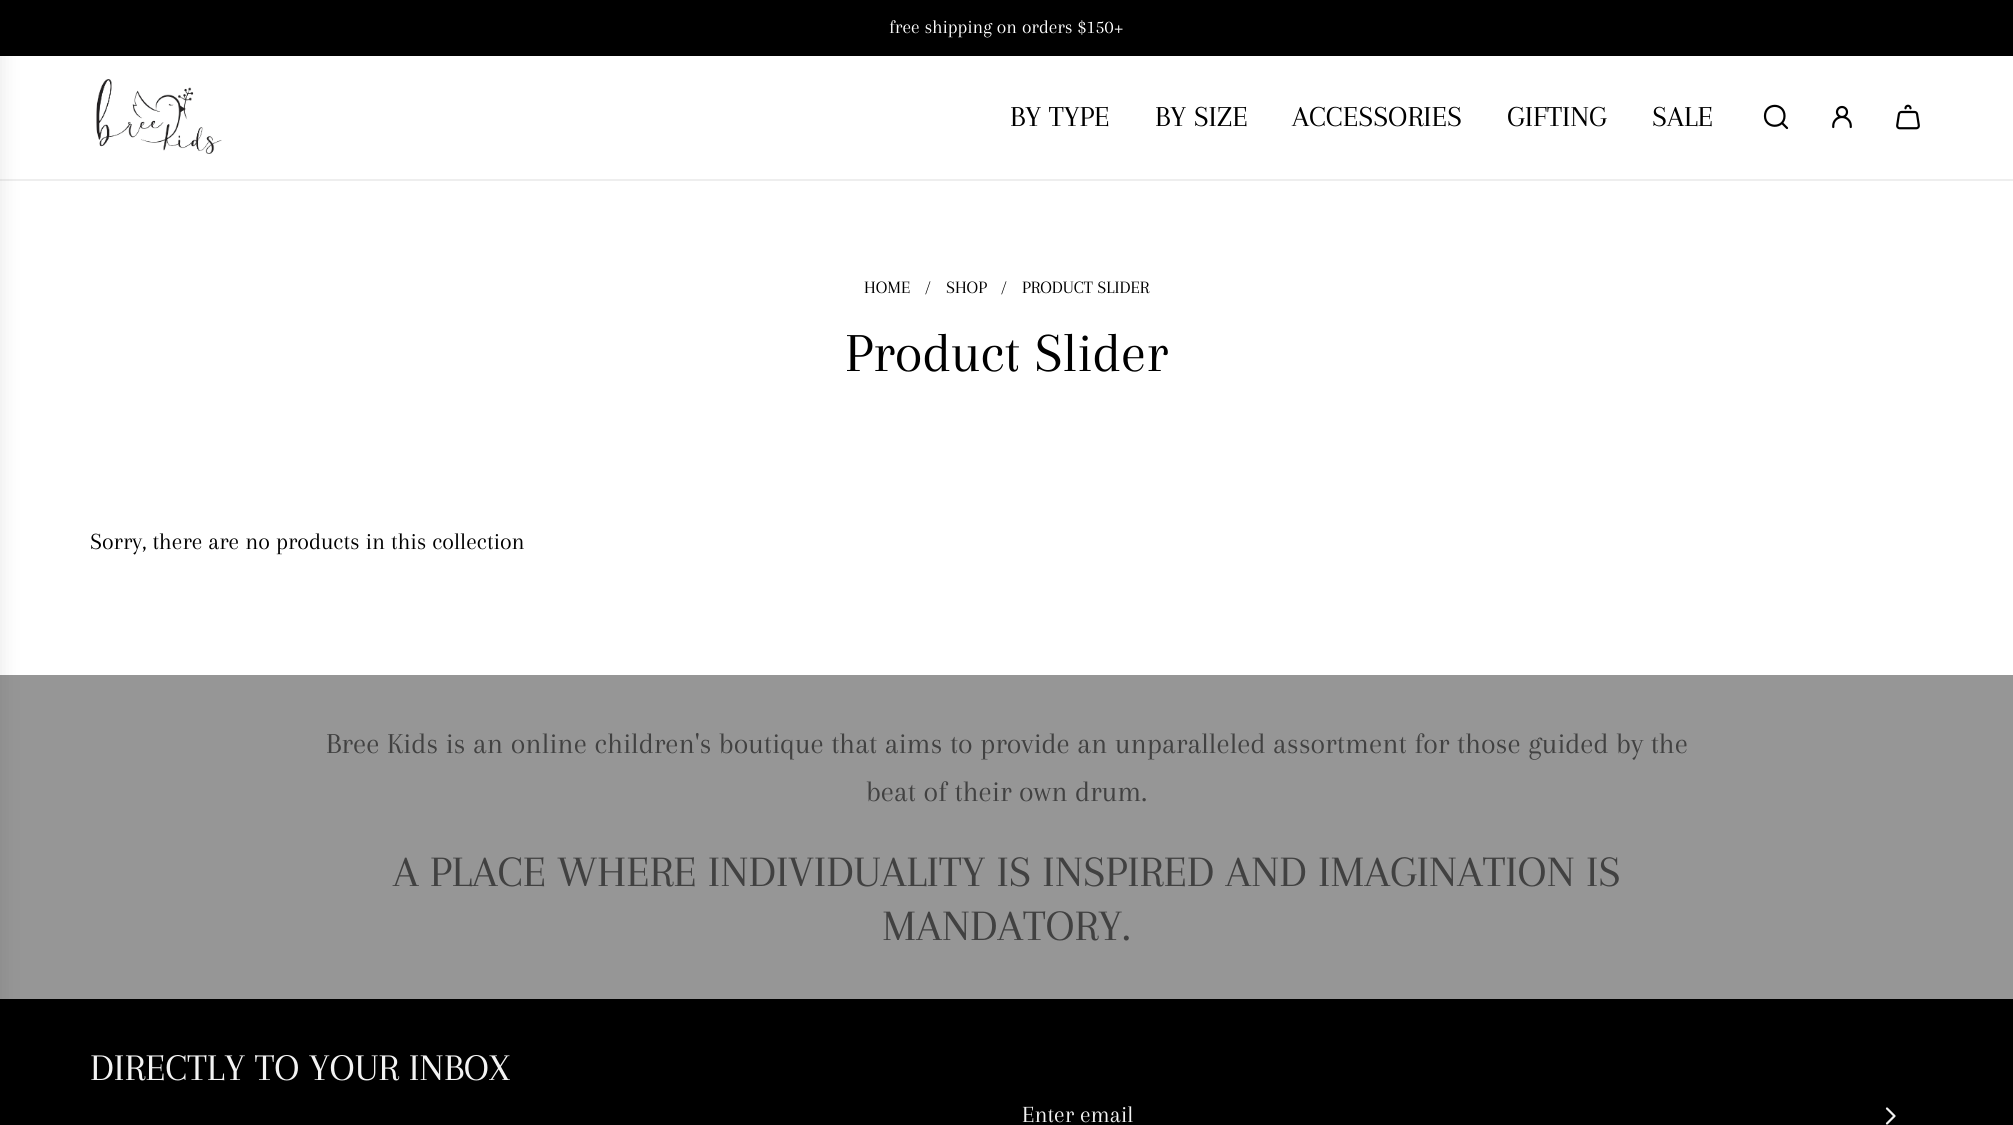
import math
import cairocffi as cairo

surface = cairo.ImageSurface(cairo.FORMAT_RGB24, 2013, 1125)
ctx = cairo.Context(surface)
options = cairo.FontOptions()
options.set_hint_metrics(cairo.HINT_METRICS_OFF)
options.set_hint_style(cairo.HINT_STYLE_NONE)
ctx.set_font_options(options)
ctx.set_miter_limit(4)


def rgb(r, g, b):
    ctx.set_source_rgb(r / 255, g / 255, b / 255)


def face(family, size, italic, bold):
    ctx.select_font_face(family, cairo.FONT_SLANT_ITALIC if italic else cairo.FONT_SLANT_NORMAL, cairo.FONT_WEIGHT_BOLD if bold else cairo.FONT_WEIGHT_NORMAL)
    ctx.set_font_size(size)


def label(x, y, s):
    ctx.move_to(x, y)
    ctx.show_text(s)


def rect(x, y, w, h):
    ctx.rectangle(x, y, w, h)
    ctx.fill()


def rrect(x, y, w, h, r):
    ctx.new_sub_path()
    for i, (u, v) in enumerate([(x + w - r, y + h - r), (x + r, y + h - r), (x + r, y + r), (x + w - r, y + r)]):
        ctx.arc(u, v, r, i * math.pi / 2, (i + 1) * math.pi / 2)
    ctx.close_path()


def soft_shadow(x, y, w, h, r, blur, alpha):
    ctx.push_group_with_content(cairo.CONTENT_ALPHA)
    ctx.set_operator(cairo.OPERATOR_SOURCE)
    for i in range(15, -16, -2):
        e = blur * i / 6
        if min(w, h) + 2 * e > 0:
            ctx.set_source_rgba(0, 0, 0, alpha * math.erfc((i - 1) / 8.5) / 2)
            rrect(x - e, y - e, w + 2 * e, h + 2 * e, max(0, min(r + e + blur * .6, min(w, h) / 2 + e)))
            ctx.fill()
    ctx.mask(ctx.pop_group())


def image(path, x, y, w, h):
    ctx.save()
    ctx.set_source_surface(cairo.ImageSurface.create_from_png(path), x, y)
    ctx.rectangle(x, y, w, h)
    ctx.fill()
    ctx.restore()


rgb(255, 255, 255)
ctx.paint()
rgb(0, 0, 0)
rect(0, 0, 2013, 56)
face('Arapey', 19.5, 0, 0)
rgb(255, 255, 255)
label(889, 33, 'free shipping on orders $150+')
rgb(238, 238, 238)
rect(0, 179, 2013, 2)
rgb(150, 150, 150)
rect(0, 675, 2013, 324)
rgb(0, 0, 0)
rect(0, 999, 2013, 126)
rgb(0, 0, 0)
soft_shadow(-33, 8, 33, 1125, 0, 11, 0.1)
image('image0.png', 96, 79, 126, 75)
face('Arapey', 30, 0, 0)
rgb(0, 0, 0)
label(1010, 126, 'BY TYPE')
label(1155, 126, 'BY SIZE')
label(1292, 126, 'ACCESSORIES')
label(1507, 126, 'GIFTING')
label(1652, 126, 'SALE')
ctx.new_path()
ctx.move_to(1782.5, 123.5)
ctx.line_to(1787, 128)
ctx.move_to(1765, 116)
ctx.curve_to(1765, 129, 1784.5, 129, 1784.5, 116)
ctx.curve_to(1784.5, 102.5, 1765, 102.5, 1765, 116)
ctx.close_path()
ctx.set_line_width(2.2)
ctx.set_line_cap(cairo.LINE_CAP_ROUND)
ctx.set_line_join(cairo.LINE_JOIN_ROUND)
ctx.stroke()
image('image1.png', 1832, 105, 20, 24)
image('image2.png', 1896, 104, 24, 26)
face('Arapey', 18, 0, 0)
label(864, 293, 'HOME')
label(925, 293, '/')
label(946, 293, 'SHOP')
label(1001, 293, '/')
label(1022, 293, 'PRODUCT SLIDER')
face('Arapey', 57, 0, 0)
label(845, 371, 'Product Slider')
face('Arapey', 24, 0, 0)
label(90, 549, 'Sorry, there are no products in this collection')
face('Arapey', 30, 0, 0)
rgb(65, 65, 65)
label(326, 753, 'Bree Kids is an online children\'s boutique that aims to provide an unparalleled assortment for those guided by the')
label(866, 801, 'beat of their own drum.')
face('Arapey', 45, 0, 0)
label(393, 886, 'A PLACE WHERE INDIVIDUALITY IS INSPIRED AND IMAGINATION IS')
label(882, 940, 'MANDATORY.')
face('Arapey', 39, 0, 0)
rgb(243, 243, 243)
label(90, 1080, 'DIRECTLY TO YOUR INBOX')
face('Arapey', 24, 0, 0)
label(1022, 1122, 'Enter email')
ctx.new_path()
ctx.move_to(1887, 1108.5)
ctx.line_to(1894.5, 1116)
ctx.line_to(1887, 1123.5)
ctx.stroke()
surface.write_to_png('render.png')
